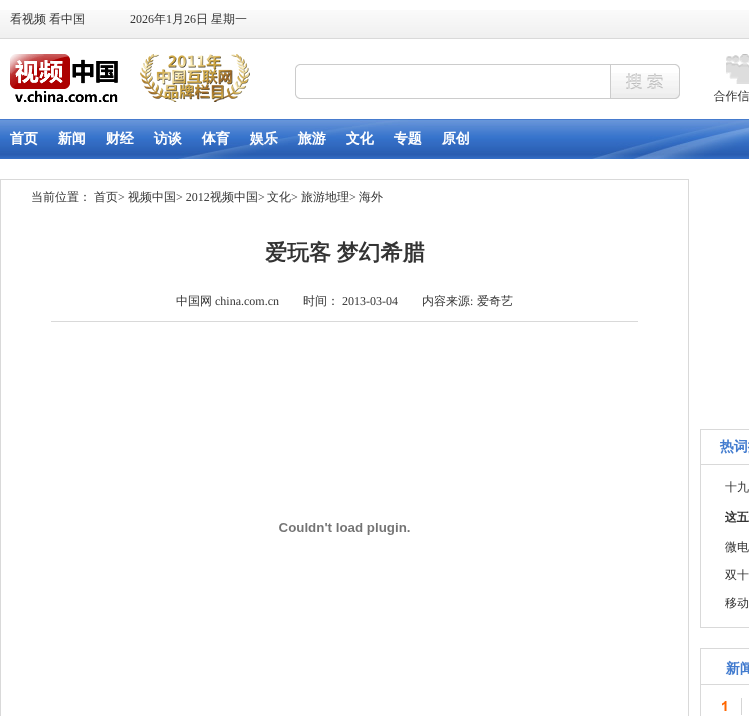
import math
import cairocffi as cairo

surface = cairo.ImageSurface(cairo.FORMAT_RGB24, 749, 716)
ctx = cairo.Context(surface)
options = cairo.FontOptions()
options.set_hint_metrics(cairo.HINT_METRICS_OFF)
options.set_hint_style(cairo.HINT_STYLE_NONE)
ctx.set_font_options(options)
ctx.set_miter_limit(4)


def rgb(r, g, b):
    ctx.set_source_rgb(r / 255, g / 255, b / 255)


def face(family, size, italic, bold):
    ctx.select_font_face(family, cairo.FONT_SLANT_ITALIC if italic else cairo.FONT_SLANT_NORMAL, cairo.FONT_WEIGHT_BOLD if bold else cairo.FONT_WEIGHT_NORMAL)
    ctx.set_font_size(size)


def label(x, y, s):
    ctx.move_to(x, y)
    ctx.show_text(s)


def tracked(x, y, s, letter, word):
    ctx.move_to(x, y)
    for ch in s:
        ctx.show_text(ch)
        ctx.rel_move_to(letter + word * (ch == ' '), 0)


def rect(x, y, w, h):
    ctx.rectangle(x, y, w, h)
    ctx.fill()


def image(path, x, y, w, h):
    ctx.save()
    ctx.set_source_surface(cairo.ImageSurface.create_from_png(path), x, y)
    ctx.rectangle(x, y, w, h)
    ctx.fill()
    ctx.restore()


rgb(255, 255, 255)
ctx.paint()
image('image0.png', 0, 10, 749, 149)
ctx.rectangle(0.5, 179.5, 688, 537)
rgb(217, 217, 217)
ctx.set_line_width(1)
ctx.stroke()
face('WenQuanYi Zen Hei Medium', 12, 0, 0)
rgb(51, 51, 51)
label(31, 201, '当前位置：')
label(94, 201, '首页')
face('Liberation Serif', 12, 0, 0)
label(118, 201, '>')
face('WenQuanYi Zen Hei Medium', 12, 0, 0)
label(128, 201, '视频中国')
face('Liberation Serif', 12, 0, 0)
label(176, 201, '> 2012')
face('WenQuanYi Zen Hei Medium', 12, 0, 0)
label(210, 201, '视频中国')
face('Liberation Serif', 12, 0, 0)
label(258, 201, '>')
face('WenQuanYi Zen Hei Medium', 12, 0, 0)
label(267, 201, '文化')
face('Liberation Serif', 12, 0, 0)
label(291, 201, '>')
face('WenQuanYi Zen Hei Medium', 12, 0, 0)
label(301, 201, '旅游地理')
face('Liberation Serif', 12, 0, 0)
label(349, 201, '>')
face('WenQuanYi Zen Hei Medium', 12, 0, 0)
label(359, 201, '海外')
face('WenQuanYi Zen Hei', 22, 0, 1)
tracked(265, 260, '爱玩客 梦幻希腊', 0, -1)
rgb(217, 217, 217)
rect(51, 321, 587, 1)
face('WenQuanYi Zen Hei Medium', 12, 0, 0)
rgb(51, 51, 51)
label(176, 305, '中国网')
face('Liberation Serif', 12, 0, 0)
label(215, 305, 'china.com.cn')
face('WenQuanYi Zen Hei Medium', 12, 0, 0)
label(303, 305, '时间：')
face('Liberation Serif', 12, 0, 0)
label(342, 305, '2013-03-04')
face('WenQuanYi Zen Hei Medium', 12, 0, 0)
label(422, 305, '内容来源')
face('Liberation Serif', 12, 0, 0)
label(470, 305, ':')
face('WenQuanYi Zen Hei Medium', 12, 0, 0)
label(477, 305, '爱奇艺')
image('image1.png', 279, 523, 131, 12)
image('image2.png', 700, 429, 49, 287)
surface.write_to_png('render.png')
